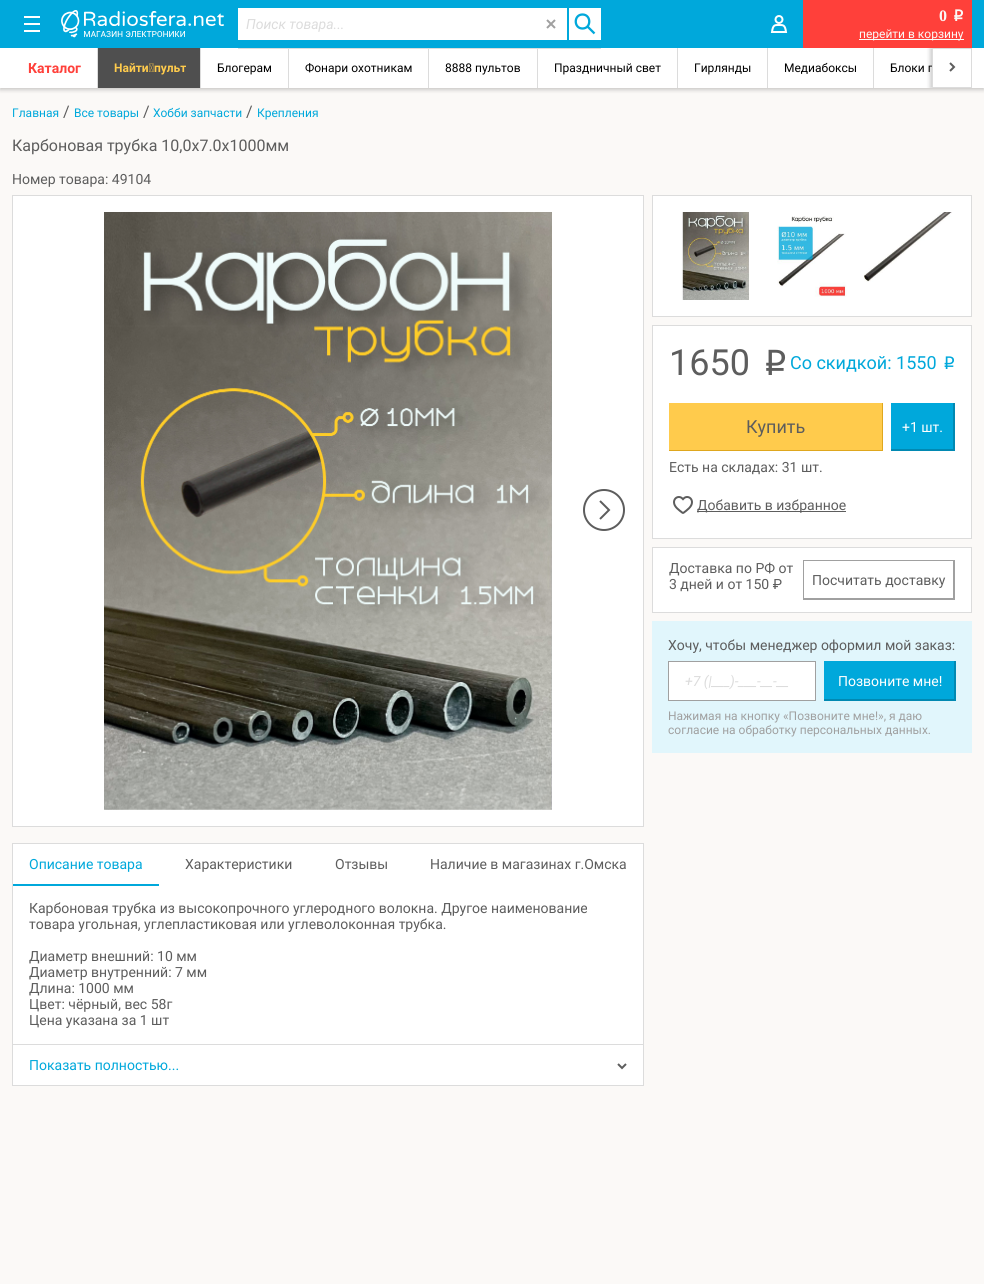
import math
import cairocffi as cairo

surface = cairo.ImageSurface(cairo.FORMAT_RGB24, 984, 1284)
ctx = cairo.Context(surface)
options = cairo.FontOptions()
options.set_hint_metrics(cairo.HINT_METRICS_OFF)
options.set_hint_style(cairo.HINT_STYLE_NONE)
ctx.set_font_options(options)
ctx.set_miter_limit(4)


def rgb(r, g, b):
    ctx.set_source_rgb(r / 255, g / 255, b / 255)


def face(family, size, italic, bold):
    ctx.select_font_face(family, cairo.FONT_SLANT_ITALIC if italic else cairo.FONT_SLANT_NORMAL, cairo.FONT_WEIGHT_BOLD if bold else cairo.FONT_WEIGHT_NORMAL)
    ctx.set_font_size(size)


def label(x, y, s):
    ctx.move_to(x, y)
    ctx.show_text(s)


def rect(x, y, w, h):
    ctx.rectangle(x, y, w, h)
    ctx.fill()


def rrect(x, y, w, h, r):
    ctx.new_sub_path()
    for i, (u, v) in enumerate([(x + w - r, y + h - r), (x + r, y + h - r), (x + r, y + r), (x + w - r, y + r)]):
        ctx.arc(u, v, r, i * math.pi / 2, (i + 1) * math.pi / 2)
    ctx.close_path()


def soft_shadow(x, y, w, h, r, blur, alpha):
    ctx.push_group_with_content(cairo.CONTENT_ALPHA)
    ctx.set_operator(cairo.OPERATOR_SOURCE)
    for i in range(15, -16, -2):
        e = blur * i / 6
        if min(w, h) + 2 * e > 0:
            ctx.set_source_rgba(0, 0, 0, alpha * math.erfc((i - 1) / 8.5) / 2)
            rrect(x - e, y - e, w + 2 * e, h + 2 * e, max(0, min(r + e + blur * .6, min(w, h) / 2 + e)))
            ctx.fill()
    ctx.mask(ctx.pop_group())


def image(path, x, y, w, h):
    ctx.save()
    ctx.set_source_surface(cairo.ImageSurface.create_from_png(path), x, y)
    ctx.rectangle(x, y, w, h)
    ctx.fill()
    ctx.restore()


rgb(251, 249, 247)
ctx.paint()
rgb(0, 0, 0)
soft_shadow(0, 50, 984, 40, 0, 2, 0.2)
rgb(255, 255, 255)
rect(0, 48, 984, 40)
ctx.save()
ctx.rectangle(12, 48, 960, 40)
ctx.clip()
rgb(0, 0, 0)
soft_shadow(930, 48, 40, 40, 0, 2, 0.2)
ctx.restore()
rgb(0, 168, 219)
rect(0, 0, 984, 48)
rgb(255, 255, 255)
rect(24, 16, 16, 2)
rect(24, 23, 16, 2)
rect(24, 30, 16, 2)
image('image0.png', 61, 10, 163, 28)
rect(238, 8, 329, 32)
face('Roboto', 14, 1, 0)
rgb(220, 220, 220)
label(246, 29, 'Поиск товара...')
ctx.new_path()
ctx.move_to(547, 28)
ctx.line_to(555, 20)
ctx.move_to(547, 20)
ctx.line_to(555, 28)
rgb(160, 160, 160)
ctx.stroke()
rgb(255, 255, 255)
rect(569, 8, 32, 32)
ctx.new_path()
ctx.move_to(582.5, 28.5)
ctx.curve_to(591.5, 28.5, 591.5, 14.5, 582.5, 14.5)
ctx.curve_to(573.5, 14.5, 573.5, 28.5, 582.5, 28.5)
ctx.close_path()
ctx.move_to(587.5, 26.5)
ctx.line_to(594.5, 33.5)
rgb(0, 168, 219)
ctx.set_line_width(2.3)
ctx.stroke()
rgb(220, 220, 220)
rect(288, 48, 1, 40)
rect(428, 48, 1, 40)
rect(537, 48, 1, 40)
rect(238, 48, 363, 1)
image('image1.png', 770, 15, 18, 18)
rgb(255, 64, 58)
rect(803, 0, 169, 48)
face('Liberation Serif', 16, 0, 1)
rgb(251, 249, 247)
label(939, 21, '0')
face('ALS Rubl', 16, 0, 1)
label(951, 21, 'p')
rect(859, 39, 105, 1)
face('Roboto', 12, 0, 0)
label(859, 38, 'перейти в корзину')
face('Roboto', 14, 0, 1)
rgb(255, 64, 58)
label(28, 73, 'Каталог')
rgb(79, 79, 79)
rect(98, 48, 102, 40)
face('Roboto', 12, 0, 1)
rgb(255, 203, 76)
label(114, 72, 'Найти пульт')
rgb(220, 220, 220)
rect(97, 48, 1, 40)
face('Roboto', 12, 0, 0)
rgb(0, 0, 0)
label(217, 72, 'Блогерам')
rgb(220, 220, 220)
rect(200, 48, 1, 40)
rgb(0, 0, 0)
label(305, 72, 'Фонари охотникам')
label(445, 72, '8888 пультов')
label(554, 72, 'Праздничный свет')
label(694, 72, 'Гирлянды')
rgb(220, 220, 220)
rect(677, 48, 1, 40)
rgb(0, 0, 0)
label(784, 72, 'Медиабоксы')
rgb(220, 220, 220)
rect(767, 48, 1, 40)
rgb(0, 0, 0)
label(890, 72, 'Блоки п')
rgb(220, 220, 220)
rect(873, 48, 1, 40)
rgb(255, 255, 255)
ctx.rectangle(932.5, 48.5, 39, 39)
ctx.fill_preserve()
rgb(220, 220, 220)
ctx.set_line_width(1)
ctx.stroke()
ctx.new_path()
ctx.move_to(950, 63)
ctx.line_to(954, 67)
ctx.line_to(950, 71)
rgb(93, 93, 93)
ctx.set_line_width(2)
ctx.stroke()
rgb(0, 168, 219)
label(12, 117, 'Главная')
face('Roboto', 16, 0, 0)
rgb(93, 93, 93)
label(63, 117, '/')
face('Roboto', 12, 0, 0)
rgb(0, 168, 219)
label(74, 117, 'Все товары')
face('Roboto', 16, 0, 0)
rgb(93, 93, 93)
label(143, 117, '/')
face('Roboto', 12, 0, 0)
rgb(0, 168, 219)
label(153, 117, 'Хобби запчасти')
face('Roboto', 16, 0, 0)
rgb(93, 93, 93)
label(246, 117, '/')
face('Roboto', 12, 0, 0)
rgb(0, 168, 219)
label(257, 117, 'Крепления')
face('Roboto', 16, 0, 0)
rgb(93, 93, 93)
label(12, 151, 'Карбоновая трубка 10,0x7.0x1000мм')
face('Roboto', 14, 0, 0)
label(12, 184, 'Номер товара: 49104')
rgb(255, 255, 255)
ctx.rectangle(12.5, 195.5, 631, 631)
ctx.fill_preserve()
rgb(220, 220, 220)
ctx.set_line_width(1)
ctx.stroke()
image('image2.png', 104, 212, 448, 598)
ctx.arc(604, 510, 20, 0, 2 * math.pi)
rgb(93, 93, 93)
ctx.set_line_width(2)
ctx.stroke()
ctx.new_path()
ctx.move_to(600, 501)
ctx.line_to(609, 510)
ctx.line_to(600, 519)
ctx.stroke()
rgb(255, 255, 255)
ctx.rectangle(652.5, 195.5, 319, 121)
ctx.fill_preserve()
rgb(220, 220, 220)
ctx.set_line_width(1)
ctx.stroke()
image('image3.png', 681, 212, 69, 88)
image('image4.png', 777, 216, 70, 81)
image('image5.png', 864, 212, 88, 70)
rgb(255, 255, 255)
ctx.rectangle(652.5, 325.5, 319, 213)
ctx.fill_preserve()
rgb(220, 220, 220)
ctx.stroke()
face('Roboto', 36, 0, 0)
rgb(93, 93, 93)
label(669, 375, '1650')
face('ALS Rubl', 36, 0, 0)
label(759, 375, 'p')
face('Roboto', 18, 0, 0)
rgb(0, 168, 219)
label(790, 369, 'Со скидкой: 1550')
face('ALS Rubl', 18, 0, 0)
label(941, 369, 'p')
rgb(255, 203, 76)
rect(669, 403, 213, 47)
rgb(223, 167, 30)
rect(882, 403, 1, 48)
rect(669, 450, 214, 1)
face('Roboto', 18, 0, 0)
rgb(93, 93, 93)
label(746, 433, 'Купить')
rgb(0, 168, 219)
rect(891, 403, 62, 46)
rgb(1, 137, 178)
rect(891, 449, 64, 2)
rect(953, 403, 2, 48)
face('Roboto', 14, 0, 0)
rgb(255, 255, 255)
label(902, 432, '+1 шт.')
rgb(93, 93, 93)
label(669, 472, 'Есть на складах: 31 шт.')
image('image6.png', 673, 496, 20, 18)
rect(697, 511, 149, 1)
label(697, 510, 'Добавить в избранное')
rgb(255, 255, 255)
ctx.rectangle(652.5, 547.5, 319, 65)
ctx.fill_preserve()
rgb(220, 220, 220)
ctx.stroke()
rgb(93, 93, 93)
label(669, 573, 'Доставка по РФ от')
label(669, 589, '3 дней и от 150 ₽')
ctx.save()
ctx.rectangle(804, 561, 150, 38)
ctx.clip()
rgb(160, 160, 160)
ctx.set_fill_rule(cairo.FILL_RULE_EVEN_ODD)
ctx.new_path()
ctx.move_to(705, 462)
ctx.line_to(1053, 462)
ctx.line_to(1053, 698)
ctx.line_to(705, 698)
ctx.close_path()
ctx.move_to(803, 560)
ctx.line_to(953, 560)
ctx.line_to(953, 598)
ctx.line_to(803, 598)
ctx.close_path()
ctx.fill()
ctx.restore()
ctx.rectangle(803.5, 560.5, 151, 39)
rgb(160, 160, 160)
ctx.stroke()
rgb(93, 93, 93)
label(812, 585, 'Посчитать доставку')
rgb(225, 246, 252)
rect(652, 621, 320, 132)
rgb(93, 93, 93)
label(668, 650, 'Хочу, чтобы менеджер оформил мой заказ:')
rgb(255, 255, 255)
ctx.rectangle(668.5, 661.5, 147, 39)
ctx.fill_preserve()
rgb(160, 160, 160)
ctx.stroke()
face('Roboto', 14, 1, 0)
rgb(220, 220, 220)
label(685, 686, '+7 (|___)-___-__-__')
rgb(0, 168, 219)
rect(824, 661, 130, 38)
rgb(1, 137, 178)
rect(824, 699, 132, 2)
rect(954, 661, 2, 40)
face('Roboto', 14, 0, 0)
rgb(255, 255, 255)
label(838, 686, 'Позвоните мне!')
face('Roboto', 12, 0, 0)
rgb(160, 160, 160)
label(668, 720, 'Нажимая на кнопку «Позвоните мне!», я даю')
label(668, 734, 'согласие на обработку персональных данных.')
rgb(255, 255, 255)
ctx.rectangle(12.5, 843.5, 631, 242)
ctx.fill_preserve()
rgb(220, 220, 220)
ctx.stroke()
rgb(0, 168, 219)
rect(13, 884, 146, 2)
face('Roboto', 14, 0, 0)
label(29, 869, 'Описание товара')
rgb(93, 93, 93)
label(185, 869, 'Характеристики')
label(335, 869, 'Отзывы')
label(430, 869, 'Наличие в магазинах г.Омска')
label(29, 913, 'Карбоновая трубка из высокопрочного углеродного волокна. Другое наименование')
label(29, 929, 'товара угольная, углепластиковая или углеволоконная трубка.')
label(29, 961, 'Диаметр внешний: 10 мм')
label(29, 977, 'Диаметр внутренний: 7 мм')
label(29, 993, 'Длина: 1000 мм')
label(29, 1009, 'Цвет: чёрный, вес 58г')
label(29, 1025, 'Цена указана за 1 шт')
rgb(220, 220, 220)
rect(13, 1044, 630, 1)
rgb(0, 168, 219)
label(29, 1070, 'Показать полностью...')
ctx.new_path()
ctx.move_to(626, 1064)
ctx.line_to(622, 1068)
ctx.line_to(618, 1064)
rgb(93, 93, 93)
ctx.set_line_width(2)
ctx.stroke()
surface.write_to_png('render.png')
